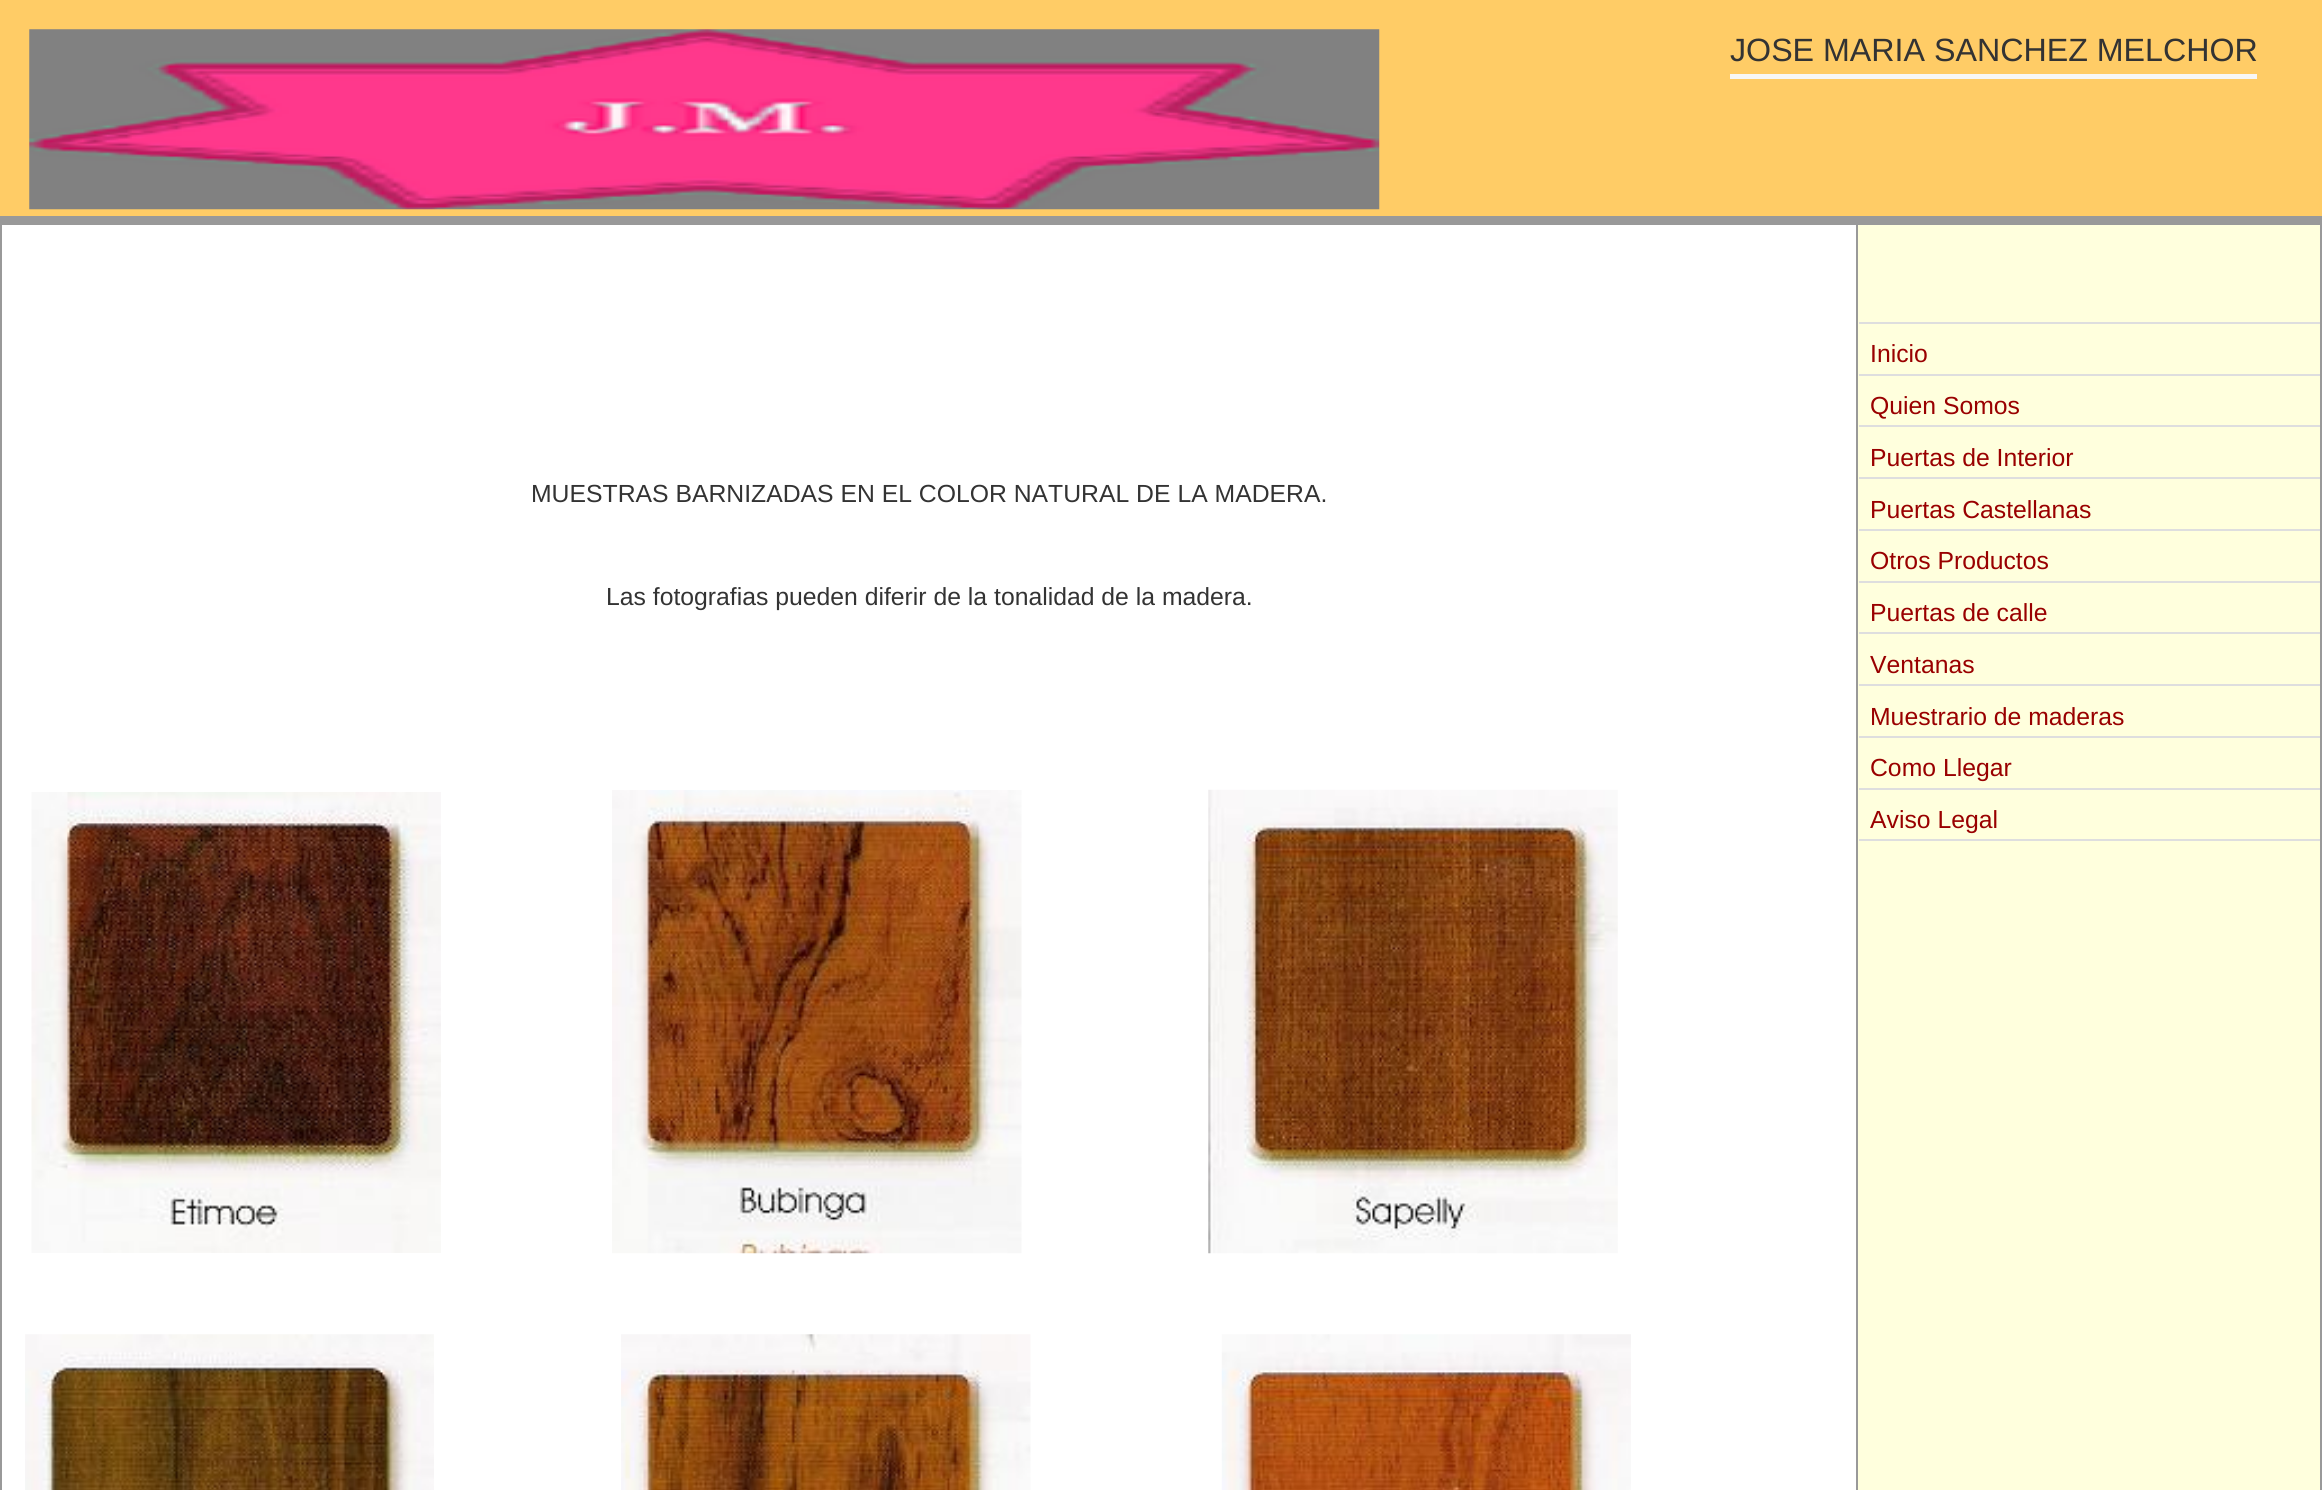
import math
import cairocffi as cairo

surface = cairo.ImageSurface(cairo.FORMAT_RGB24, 2322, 1490)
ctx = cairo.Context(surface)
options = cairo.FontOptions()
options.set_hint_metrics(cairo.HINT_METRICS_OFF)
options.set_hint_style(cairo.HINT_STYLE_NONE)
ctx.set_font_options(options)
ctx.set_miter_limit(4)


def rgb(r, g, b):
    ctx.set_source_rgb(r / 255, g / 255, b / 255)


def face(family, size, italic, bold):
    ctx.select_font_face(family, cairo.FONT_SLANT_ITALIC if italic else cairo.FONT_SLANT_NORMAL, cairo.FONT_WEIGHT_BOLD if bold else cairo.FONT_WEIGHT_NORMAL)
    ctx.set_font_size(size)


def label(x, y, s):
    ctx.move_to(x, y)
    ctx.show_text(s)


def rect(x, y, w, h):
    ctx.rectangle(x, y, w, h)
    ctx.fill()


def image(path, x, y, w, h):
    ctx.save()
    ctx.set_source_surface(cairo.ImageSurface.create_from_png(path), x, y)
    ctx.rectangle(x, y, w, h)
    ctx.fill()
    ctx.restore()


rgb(255, 255, 255)
ctx.paint()
rgb(255, 204, 102)
rect(0, 0, 2322, 216)
rgb(153, 153, 153)
rect(0, 216, 2322, 7)
image('image0.png', 29, 29, 1351, 181)
rgb(247, 247, 247)
rect(1730, 74, 527, 5)
face('Liberation Sans', 32.2, 0, 0)
rgb(51, 51, 51)
label(1730, 61, 'JOSE MARIA SANCHEZ MELCHOR')
ctx.rectangle(1, 224, 2320, 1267)
rgb(153, 153, 153)
ctx.stroke()
face('Liberation Sans', 24.75, 0, 0)
rgb(51, 51, 51)
label(531, 502, 'MUESTRAS BARNIZADAS EN EL COLOR NATURAL DE LA MADERA.')
label(606, 605, 'Las fotografias pueden diferir de la tonalidad de la madera.')
image('image1.png', 31, 792, 410, 461)
image('image2.png', 612, 790, 410, 464)
image('image3.png', 1208, 789, 410, 465)
image('image4.png', 25, 1334, 409, 156)
image('image5.png', 621, 1334, 410, 156)
image('image6.png', 1221, 1334, 410, 156)
rgb(255, 255, 221)
rect(1858, 225, 462, 1265)
rgb(153, 153, 153)
rect(1856, 225, 2, 1265)
rgb(222, 222, 222)
rect(1859, 322, 461, 2)
rect(1859, 374, 461, 2)
rgb(153, 0, 0)
label(1870, 362, 'Inicio')
rgb(222, 222, 222)
rect(1859, 425, 461, 2)
rgb(153, 0, 0)
label(1870, 414, 'Quien Somos')
rgb(222, 222, 222)
rect(1859, 477, 461, 2)
rgb(153, 0, 0)
label(1870, 466, 'Puertas de Interior')
rgb(222, 222, 222)
rect(1859, 529, 461, 2)
rgb(153, 0, 0)
label(1870, 518, 'Puertas Castellanas')
rgb(222, 222, 222)
rect(1859, 581, 461, 2)
rgb(153, 0, 0)
label(1870, 569, 'Otros Productos')
rgb(222, 222, 222)
rect(1859, 632, 461, 2)
rgb(153, 0, 0)
label(1870, 621, 'Puertas de calle')
rgb(222, 222, 222)
rect(1859, 684, 461, 2)
rgb(153, 0, 0)
label(1870, 673, 'Ventanas')
rgb(222, 222, 222)
rect(1859, 736, 461, 2)
rgb(153, 0, 0)
label(1870, 725, 'Muestrario de maderas')
rgb(222, 222, 222)
rect(1859, 788, 461, 2)
rgb(153, 0, 0)
label(1870, 776, 'Como Llegar')
rgb(222, 222, 222)
rect(1859, 839, 461, 2)
rgb(153, 0, 0)
label(1870, 828, 'Aviso Legal')
surface.write_to_png('render.png')
